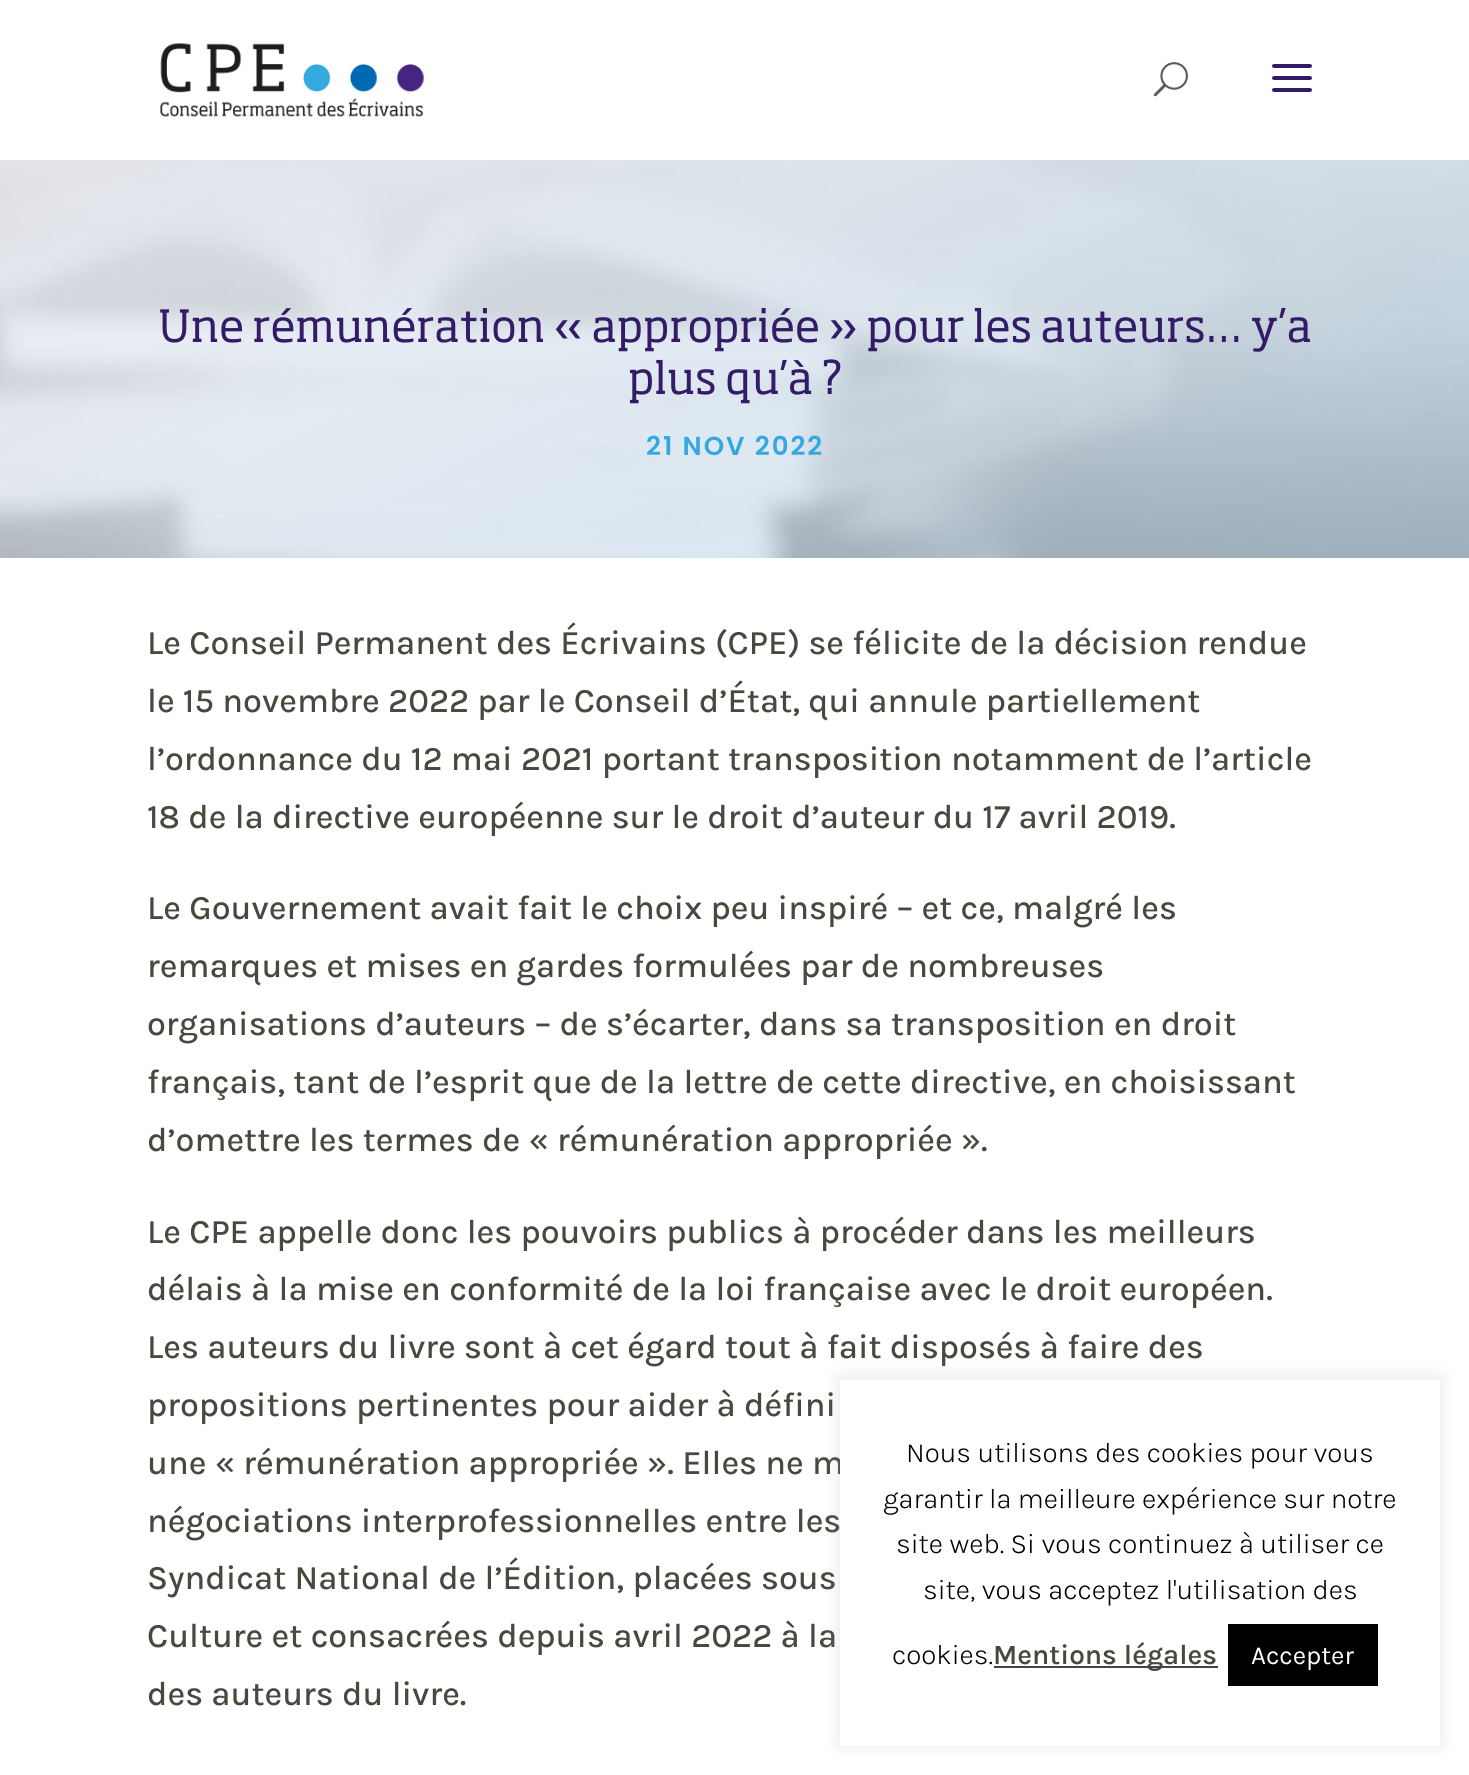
import math
import cairocffi as cairo

surface = cairo.ImageSurface(cairo.FORMAT_RGB24, 1469, 1775)
ctx = cairo.Context(surface)
options = cairo.FontOptions()
options.set_hint_metrics(cairo.HINT_METRICS_OFF)
options.set_hint_style(cairo.HINT_STYLE_NONE)
ctx.set_font_options(options)
ctx.set_miter_limit(4)


def rgb(r, g, b):
    ctx.set_source_rgb(r / 255, g / 255, b / 255)


def face(family, size, italic, bold):
    ctx.select_font_face(family, cairo.FONT_SLANT_ITALIC if italic else cairo.FONT_SLANT_NORMAL, cairo.FONT_WEIGHT_BOLD if bold else cairo.FONT_WEIGHT_NORMAL)
    ctx.set_font_size(size)


def label(x, y, s):
    ctx.move_to(x, y)
    ctx.show_text(s)


def tracked(x, y, s, letter, word):
    ctx.move_to(x, y)
    for ch in s:
        ctx.show_text(ch)
        ctx.rel_move_to(letter + word * (ch == ' '), 0)


def rect(x, y, w, h):
    ctx.rectangle(x, y, w, h)
    ctx.fill()


def rrect(x, y, w, h, r):
    ctx.new_sub_path()
    for i, (u, v) in enumerate([(x + w - r, y + h - r), (x + r, y + h - r), (x + r, y + r), (x + w - r, y + r)]):
        ctx.arc(u, v, r, i * math.pi / 2, (i + 1) * math.pi / 2)
    ctx.close_path()


def soft_shadow(x, y, w, h, r, blur, alpha):
    ctx.push_group_with_content(cairo.CONTENT_ALPHA)
    ctx.set_operator(cairo.OPERATOR_SOURCE)
    for i in range(15, -16, -2):
        e = blur * i / 6
        if min(w, h) + 2 * e > 0:
            ctx.set_source_rgba(0, 0, 0, alpha * math.erfc((i - 1) / 8.5) / 2)
            rrect(x - e, y - e, w + 2 * e, h + 2 * e, max(0, min(r + e + blur * .6, min(w, h) / 2 + e)))
            ctx.fill()
    ctx.mask(ctx.pop_group())


def image(path, x, y, w, h):
    ctx.save()
    ctx.set_source_surface(cairo.ImageSurface.create_from_png(path), x, y)
    ctx.rectangle(x, y, w, h)
    ctx.fill()
    ctx.restore()


rgb(255, 255, 255)
ctx.paint()
image('image0.png', 160, 43, 264, 74)
image('image1.png', 1153, 62, 35, 35)
image('image2.png', 1272, 64, 40, 28)
image('image3.png', 0, 160, 1469, 398)
image('image4.png', 160, 307, 1150, 45)
image('image5.png', 629, 359, 212, 45)
face('Poppins SemiBold', 26, 0, 0)
rgb(53, 168, 224)
tracked(646, 455, '21 NOV 2022', 2, 0)
face('Karla Medium', 34, 0, 0)
rgb(71, 73, 63)
label(147, 654, 'Le Conseil Permanent des Écrivains (CPE) se félicite de la décision rendue')
label(147, 712, 'le 15 novembre 2022 par le Conseil d’État, qui annule partiellement')
label(147, 770, 'l’ordonnance du 12 mai 2021 portant transposition notamment de l’article')
label(147, 828, '18 de la directive européenne sur le droit d’auteur du 17 avril 2019.')
label(147, 919, 'Le Gouvernement avait fait le choix peu inspiré – et ce, malgré les')
label(147, 977, 'remarques et mises en gardes formulées par de nombreuses')
label(147, 1035, 'organisations d’auteurs – de s’écarter, dans sa transposition en droit')
label(147, 1093, 'français, tant de l’esprit que de la lettre de cette directive, en choisissant')
label(147, 1151, 'd’omettre les termes de « rémunération appropriée ».')
label(147, 1243, 'Le CPE appelle donc les pouvoirs publics à procéder dans les meilleurs')
label(147, 1300, 'délais à la mise en conformité de la loi française avec le droit européen.')
label(147, 1358, 'Les auteurs du livre sont à cet égard tout à fait disposés à faire des')
label(147, 1416, 'propositions pertinentes pour aider à défini')
label(147, 1474, 'une « rémunération appropriée ». Elles ne m')
label(147, 1532, 'négociations interprofessionnelles entre les')
label(147, 1589, 'Syndicat National de l’Édition, placées sous')
label(147, 1647, 'Culture et consacrées depuis avril 2022 à la')
label(147, 1705, 'des auteurs du livre.')
rgb(172, 171, 171)
soft_shadow(840, 1378, 600, 366, 0, 10, 0.3)
rgb(255, 255, 255)
rect(840, 1380, 600, 366)
face('Karla Light', 28, 0, 0)
rgb(0, 0, 0)
label(906, 1462, 'Nous utilisons des cookies pour vous')
label(883, 1508, 'garantir la meilleure expérience sur notre')
label(896, 1553, 'site web. Si vous continuez à utiliser ce')
label(923, 1599, 'site, vous acceptez l\'utilisation des')
label(892, 1664, 'cookies.')
rgb(68, 68, 68)
rect(994, 1666, 224, 2)
face('Karla SemiBold', 28, 0, 0)
rgb(71, 73, 63)
label(993, 1664, 'Mentions légales')
rgb(0, 0, 0)
rect(1228, 1624, 150, 62)
face('Karla', 26, 0, 0)
rgb(255, 255, 255)
label(1251, 1664, 'Accepter')
surface.write_to_png('render.png')
